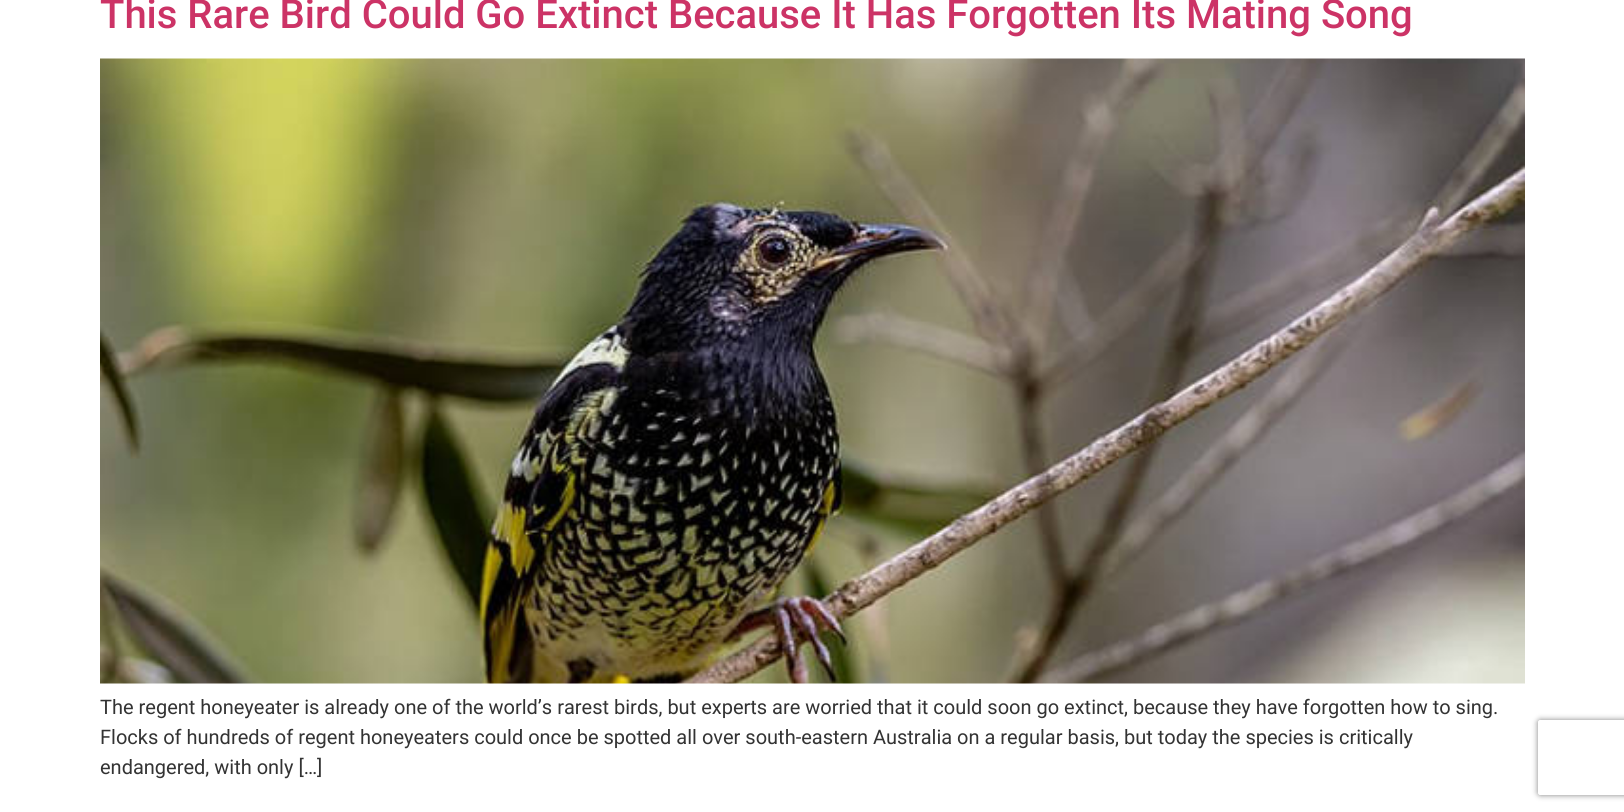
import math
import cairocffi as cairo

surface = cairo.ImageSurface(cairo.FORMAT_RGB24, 1624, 812)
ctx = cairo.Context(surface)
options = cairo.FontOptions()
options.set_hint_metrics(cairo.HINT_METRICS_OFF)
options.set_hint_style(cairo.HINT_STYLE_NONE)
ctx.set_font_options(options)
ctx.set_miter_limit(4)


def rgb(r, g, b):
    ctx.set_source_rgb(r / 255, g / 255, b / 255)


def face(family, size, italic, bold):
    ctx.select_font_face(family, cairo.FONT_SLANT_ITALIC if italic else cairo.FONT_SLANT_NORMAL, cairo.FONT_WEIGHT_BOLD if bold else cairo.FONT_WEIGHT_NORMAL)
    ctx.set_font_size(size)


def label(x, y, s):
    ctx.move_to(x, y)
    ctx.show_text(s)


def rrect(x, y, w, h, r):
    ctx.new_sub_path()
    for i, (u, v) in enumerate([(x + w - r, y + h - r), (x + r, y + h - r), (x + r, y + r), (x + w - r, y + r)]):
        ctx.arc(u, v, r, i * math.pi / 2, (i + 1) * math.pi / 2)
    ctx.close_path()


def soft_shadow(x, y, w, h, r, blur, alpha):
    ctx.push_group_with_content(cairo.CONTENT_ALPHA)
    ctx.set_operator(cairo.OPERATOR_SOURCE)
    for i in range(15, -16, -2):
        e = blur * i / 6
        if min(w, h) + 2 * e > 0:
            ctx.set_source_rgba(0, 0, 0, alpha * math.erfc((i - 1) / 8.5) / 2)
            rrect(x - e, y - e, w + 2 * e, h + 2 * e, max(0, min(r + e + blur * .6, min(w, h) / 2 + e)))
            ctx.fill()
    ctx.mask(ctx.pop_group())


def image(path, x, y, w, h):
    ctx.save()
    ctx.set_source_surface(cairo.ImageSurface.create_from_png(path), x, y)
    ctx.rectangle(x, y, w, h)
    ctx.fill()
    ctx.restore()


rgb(255, 255, 255)
ctx.paint()
face('Roboto Medium', 40, 0, 0)
rgb(204, 51, 102)
label(100, 28, 'This Rare Bird Could Go Extinct Because It Has Forgotten Its Mating Song')
image('image0.png', 100, 58, 1425, 626)
face('Roboto', 20, 0, 0)
rgb(51, 51, 51)
label(100, 714, 'The regent honeyeater is already one of the world’s rarest birds, but experts are worried that it could soon go extinct, because they have forgotten how to sing.')
label(100, 744, 'Flocks of hundreds of regent honeyeaters could once be spotted all over south-eastern Australia on a regular basis, but today the species is critically')
label(100, 774, 'endangered, with only […]')
ctx.save()
ctx.set_fill_rule(cairo.FILL_RULE_EVEN_ODD)
ctx.new_path()
ctx.move_to(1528, 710)
ctx.line_to(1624, 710)
ctx.line_to(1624, 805)
ctx.line_to(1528, 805)
ctx.close_path()
ctx.move_to(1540.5, 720)
ctx.line_to(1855.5, 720)
ctx.curve_to(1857, 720, 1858, 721, 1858, 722.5)
ctx.line_to(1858, 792.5)
ctx.curve_to(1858, 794, 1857, 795, 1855.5, 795)
ctx.line_to(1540.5, 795)
ctx.curve_to(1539, 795, 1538, 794, 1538, 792.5)
ctx.line_to(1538, 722.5)
ctx.curve_to(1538, 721, 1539, 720, 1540.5, 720)
ctx.close_path()
ctx.clip()
rgb(128, 128, 128)
soft_shadow(1538, 720, 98, 75, 2.5, 3, 1)
ctx.restore()
surface.write_to_png('render.png')
